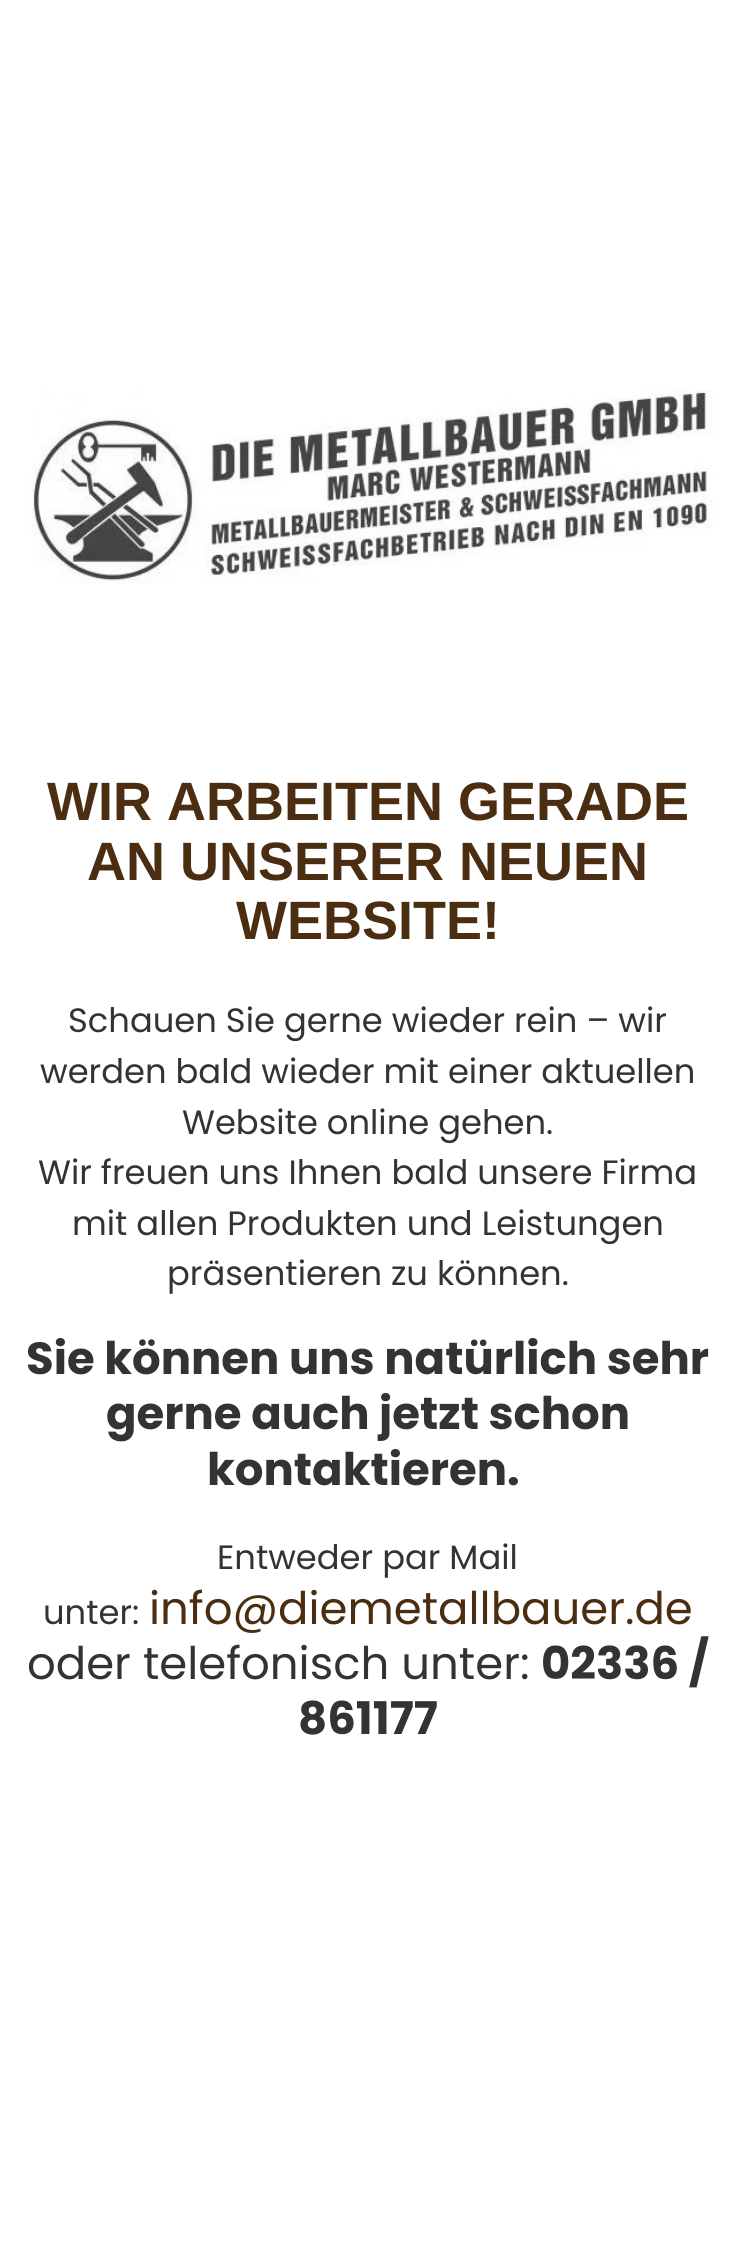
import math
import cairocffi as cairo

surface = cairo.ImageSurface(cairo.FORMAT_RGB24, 734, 2268)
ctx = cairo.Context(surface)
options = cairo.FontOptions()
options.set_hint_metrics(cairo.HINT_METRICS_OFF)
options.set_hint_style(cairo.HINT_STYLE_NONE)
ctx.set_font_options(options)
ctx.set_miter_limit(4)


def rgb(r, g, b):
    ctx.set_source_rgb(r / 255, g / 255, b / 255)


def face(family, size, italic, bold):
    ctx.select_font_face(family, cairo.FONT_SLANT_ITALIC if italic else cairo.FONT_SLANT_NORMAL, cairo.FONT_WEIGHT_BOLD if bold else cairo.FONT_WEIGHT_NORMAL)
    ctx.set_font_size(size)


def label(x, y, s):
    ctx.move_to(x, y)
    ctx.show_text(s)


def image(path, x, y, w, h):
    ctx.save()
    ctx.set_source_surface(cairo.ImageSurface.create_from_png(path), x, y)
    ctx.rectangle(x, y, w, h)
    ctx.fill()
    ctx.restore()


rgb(255, 255, 255)
ctx.paint()
image('image0.png', 31, 390, 682, 194)
face('Liberation Sans', 54, 0, 1)
rgb(75, 46, 18)
label(47, 820, 'WIR ARBEITEN GERADE')
label(87, 880, 'AN UNSERER NEUEN')
label(236, 939, 'WEBSITE!')
face('Poppins', 33.75, 0, 0)
rgb(51, 51, 51)
label(68, 1032, 'Schauen Sie gerne wieder rein – wir')
label(40, 1083, 'werden bald wieder mit einer aktuellen')
label(182, 1134, 'Website online gehen.')
label(38, 1184, 'Wir freuen uns Ihnen bald unsere Firma')
label(72, 1235, 'mit allen Produkten und Leistungen')
label(167, 1285, 'präsentieren zu können.')
face('Poppins', 45, 0, 1)
label(26, 1374, 'Sie können uns natürlich sehr')
label(106, 1429, 'gerne auch jetzt schon')
label(207, 1485, 'kontaktieren.')
face('Poppins', 33.75, 0, 0)
label(217, 1569, 'Entweder par Mail')
label(43, 1624, 'unter:')
face('Poppins', 45, 0, 0)
rgb(75, 46, 18)
label(149, 1624, 'info@diemetallbauer.de')
rgb(51, 51, 51)
label(27, 1679, 'oder telefonisch unter:')
face('Poppins', 45, 0, 1)
label(541, 1679, '02336 /')
label(298, 1734, '861177')
surface.write_to_png('render.png')
